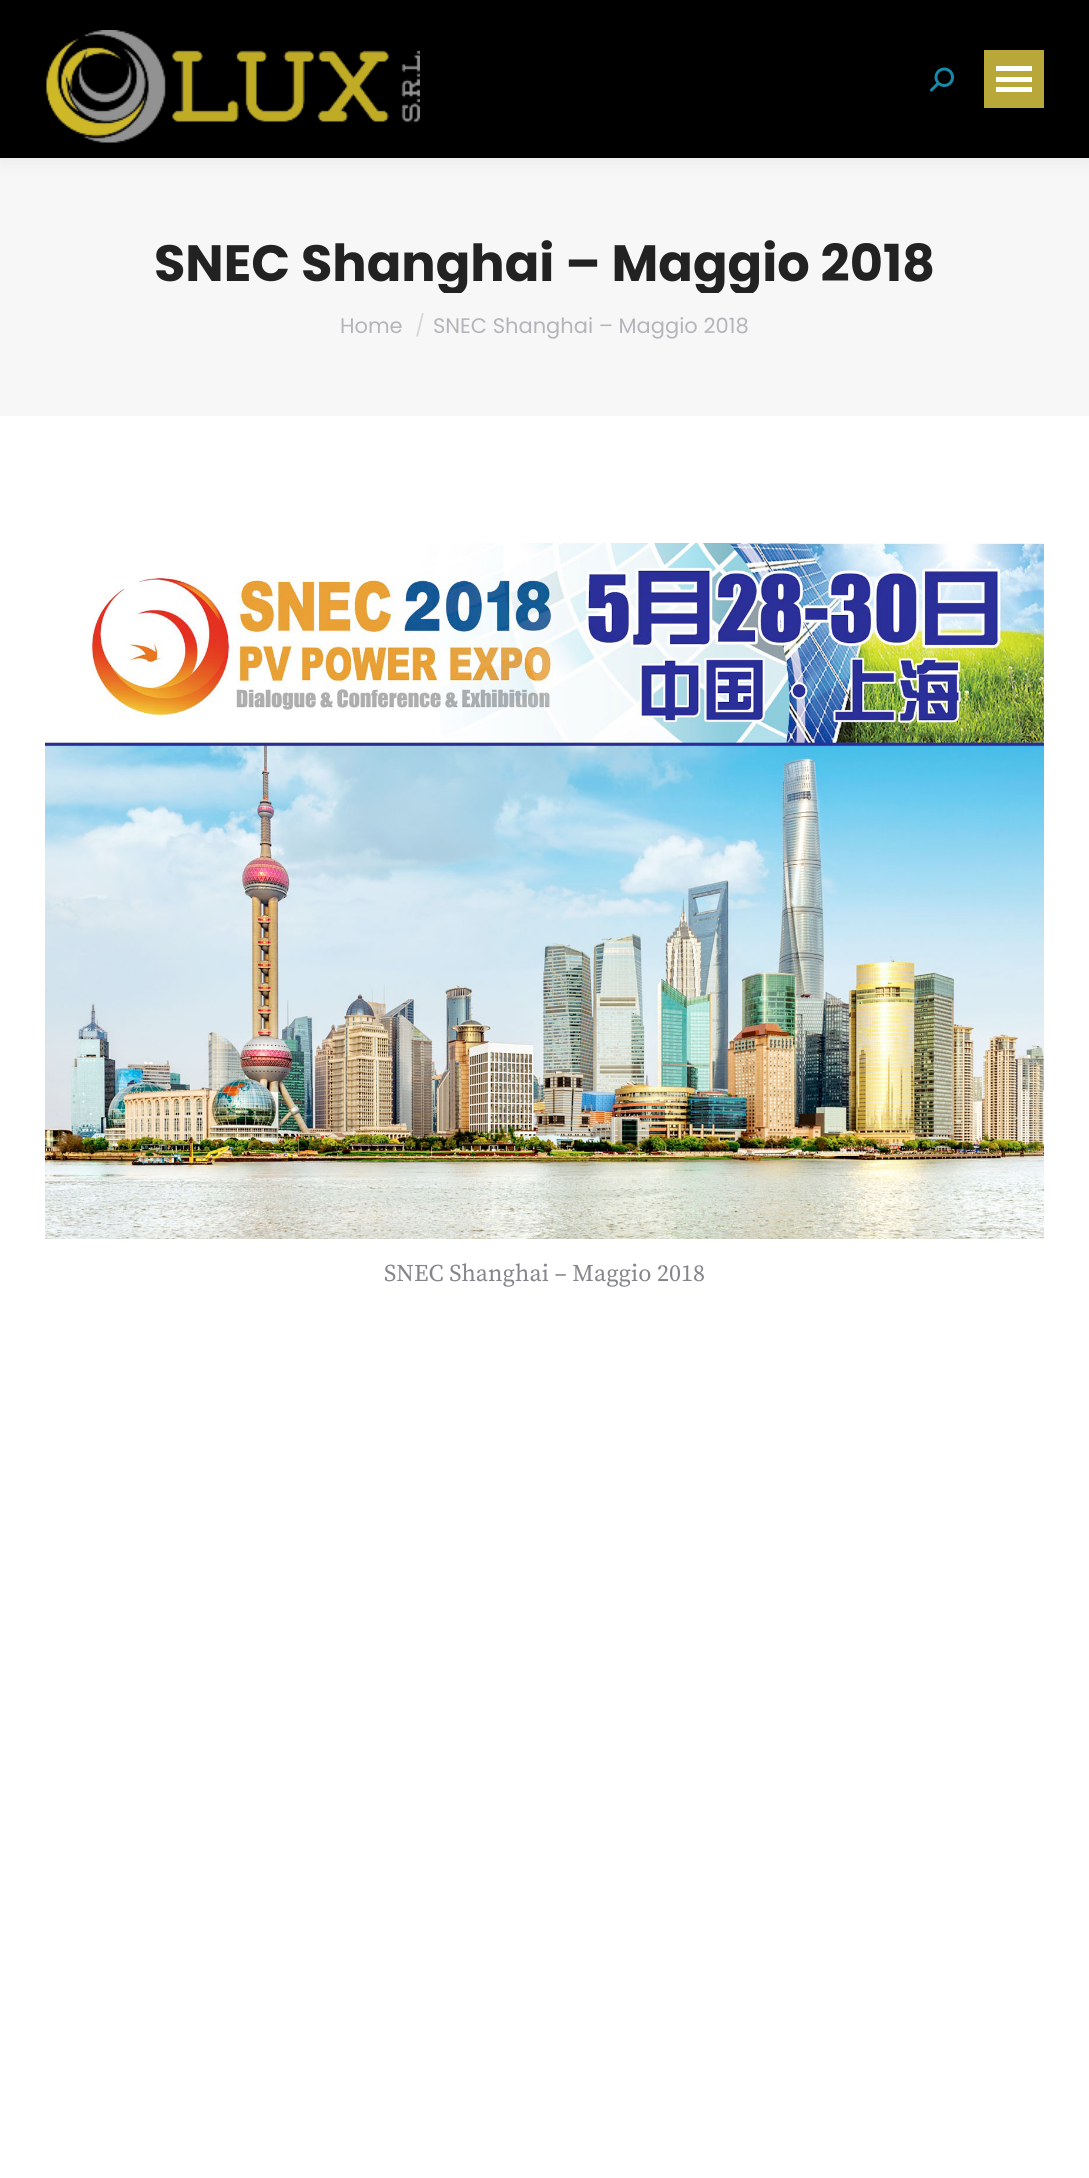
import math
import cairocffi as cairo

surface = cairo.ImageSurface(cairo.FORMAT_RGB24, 1089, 2178)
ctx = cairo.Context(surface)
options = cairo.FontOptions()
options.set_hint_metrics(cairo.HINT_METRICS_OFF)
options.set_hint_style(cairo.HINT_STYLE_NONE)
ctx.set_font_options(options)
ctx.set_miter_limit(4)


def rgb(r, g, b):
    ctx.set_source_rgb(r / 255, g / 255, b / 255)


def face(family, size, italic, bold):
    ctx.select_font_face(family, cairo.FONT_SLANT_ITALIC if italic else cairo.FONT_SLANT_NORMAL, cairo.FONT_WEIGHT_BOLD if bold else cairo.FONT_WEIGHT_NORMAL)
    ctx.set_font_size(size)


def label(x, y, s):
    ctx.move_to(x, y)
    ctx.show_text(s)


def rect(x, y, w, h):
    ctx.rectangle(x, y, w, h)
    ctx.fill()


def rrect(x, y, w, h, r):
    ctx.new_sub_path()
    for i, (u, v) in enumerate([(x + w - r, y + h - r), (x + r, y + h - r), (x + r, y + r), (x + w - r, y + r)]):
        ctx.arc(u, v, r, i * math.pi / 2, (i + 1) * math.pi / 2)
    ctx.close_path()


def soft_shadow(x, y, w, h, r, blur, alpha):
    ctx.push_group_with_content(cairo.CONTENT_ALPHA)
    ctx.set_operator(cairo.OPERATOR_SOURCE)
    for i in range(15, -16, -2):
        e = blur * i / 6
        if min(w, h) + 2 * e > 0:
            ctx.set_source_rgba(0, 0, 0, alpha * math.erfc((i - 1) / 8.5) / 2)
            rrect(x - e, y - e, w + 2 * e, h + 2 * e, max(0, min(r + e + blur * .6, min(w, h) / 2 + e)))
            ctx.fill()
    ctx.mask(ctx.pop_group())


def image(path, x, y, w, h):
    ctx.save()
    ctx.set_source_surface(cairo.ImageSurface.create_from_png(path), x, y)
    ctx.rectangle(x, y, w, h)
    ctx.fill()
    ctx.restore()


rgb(255, 255, 255)
ctx.paint()
rgb(247, 247, 247)
rect(0, 158, 1089, 258)
rgb(0, 0, 0)
soft_shadow(-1, -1, 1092, 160, 0, 11, 0.07)
rgb(0, 0, 0)
rect(0, 0, 1089, 158)
image('image0.png', 46, 30, 374, 113)
image('image1.png', 930, 67, 24, 25)
rgb(183, 168, 57)
rect(984, 50, 60, 58)
rgb(255, 255, 255)
rect(996, 66, 36, 5)
rect(996, 77, 36, 5)
rect(996, 87, 36, 5)
ctx.save()
ctx.rectangle(155, 233, 780, 60)
ctx.clip()
face('Poppins', 51, 0, 1)
rgb(34, 34, 34)
label(154, 281, 'SNEC Shanghai – Maggio 2018')
ctx.restore()
face('Poppins', 21, 0, 0)
rgb(180, 181, 187)
label(340, 333, 'Home')
rgb(214, 214, 217)
label(415, 333, '/')
rgb(180, 181, 187)
label(433, 333, 'SNEC Shanghai – Maggio 2018')
image('image2.png', 45, 543, 999, 696)
face('Source Serif Pro', 24, 0, 0)
rgb(133, 134, 140)
label(384, 1281, 'SNEC Shanghai – Maggio 2018')
surface.write_to_png('render.png')
